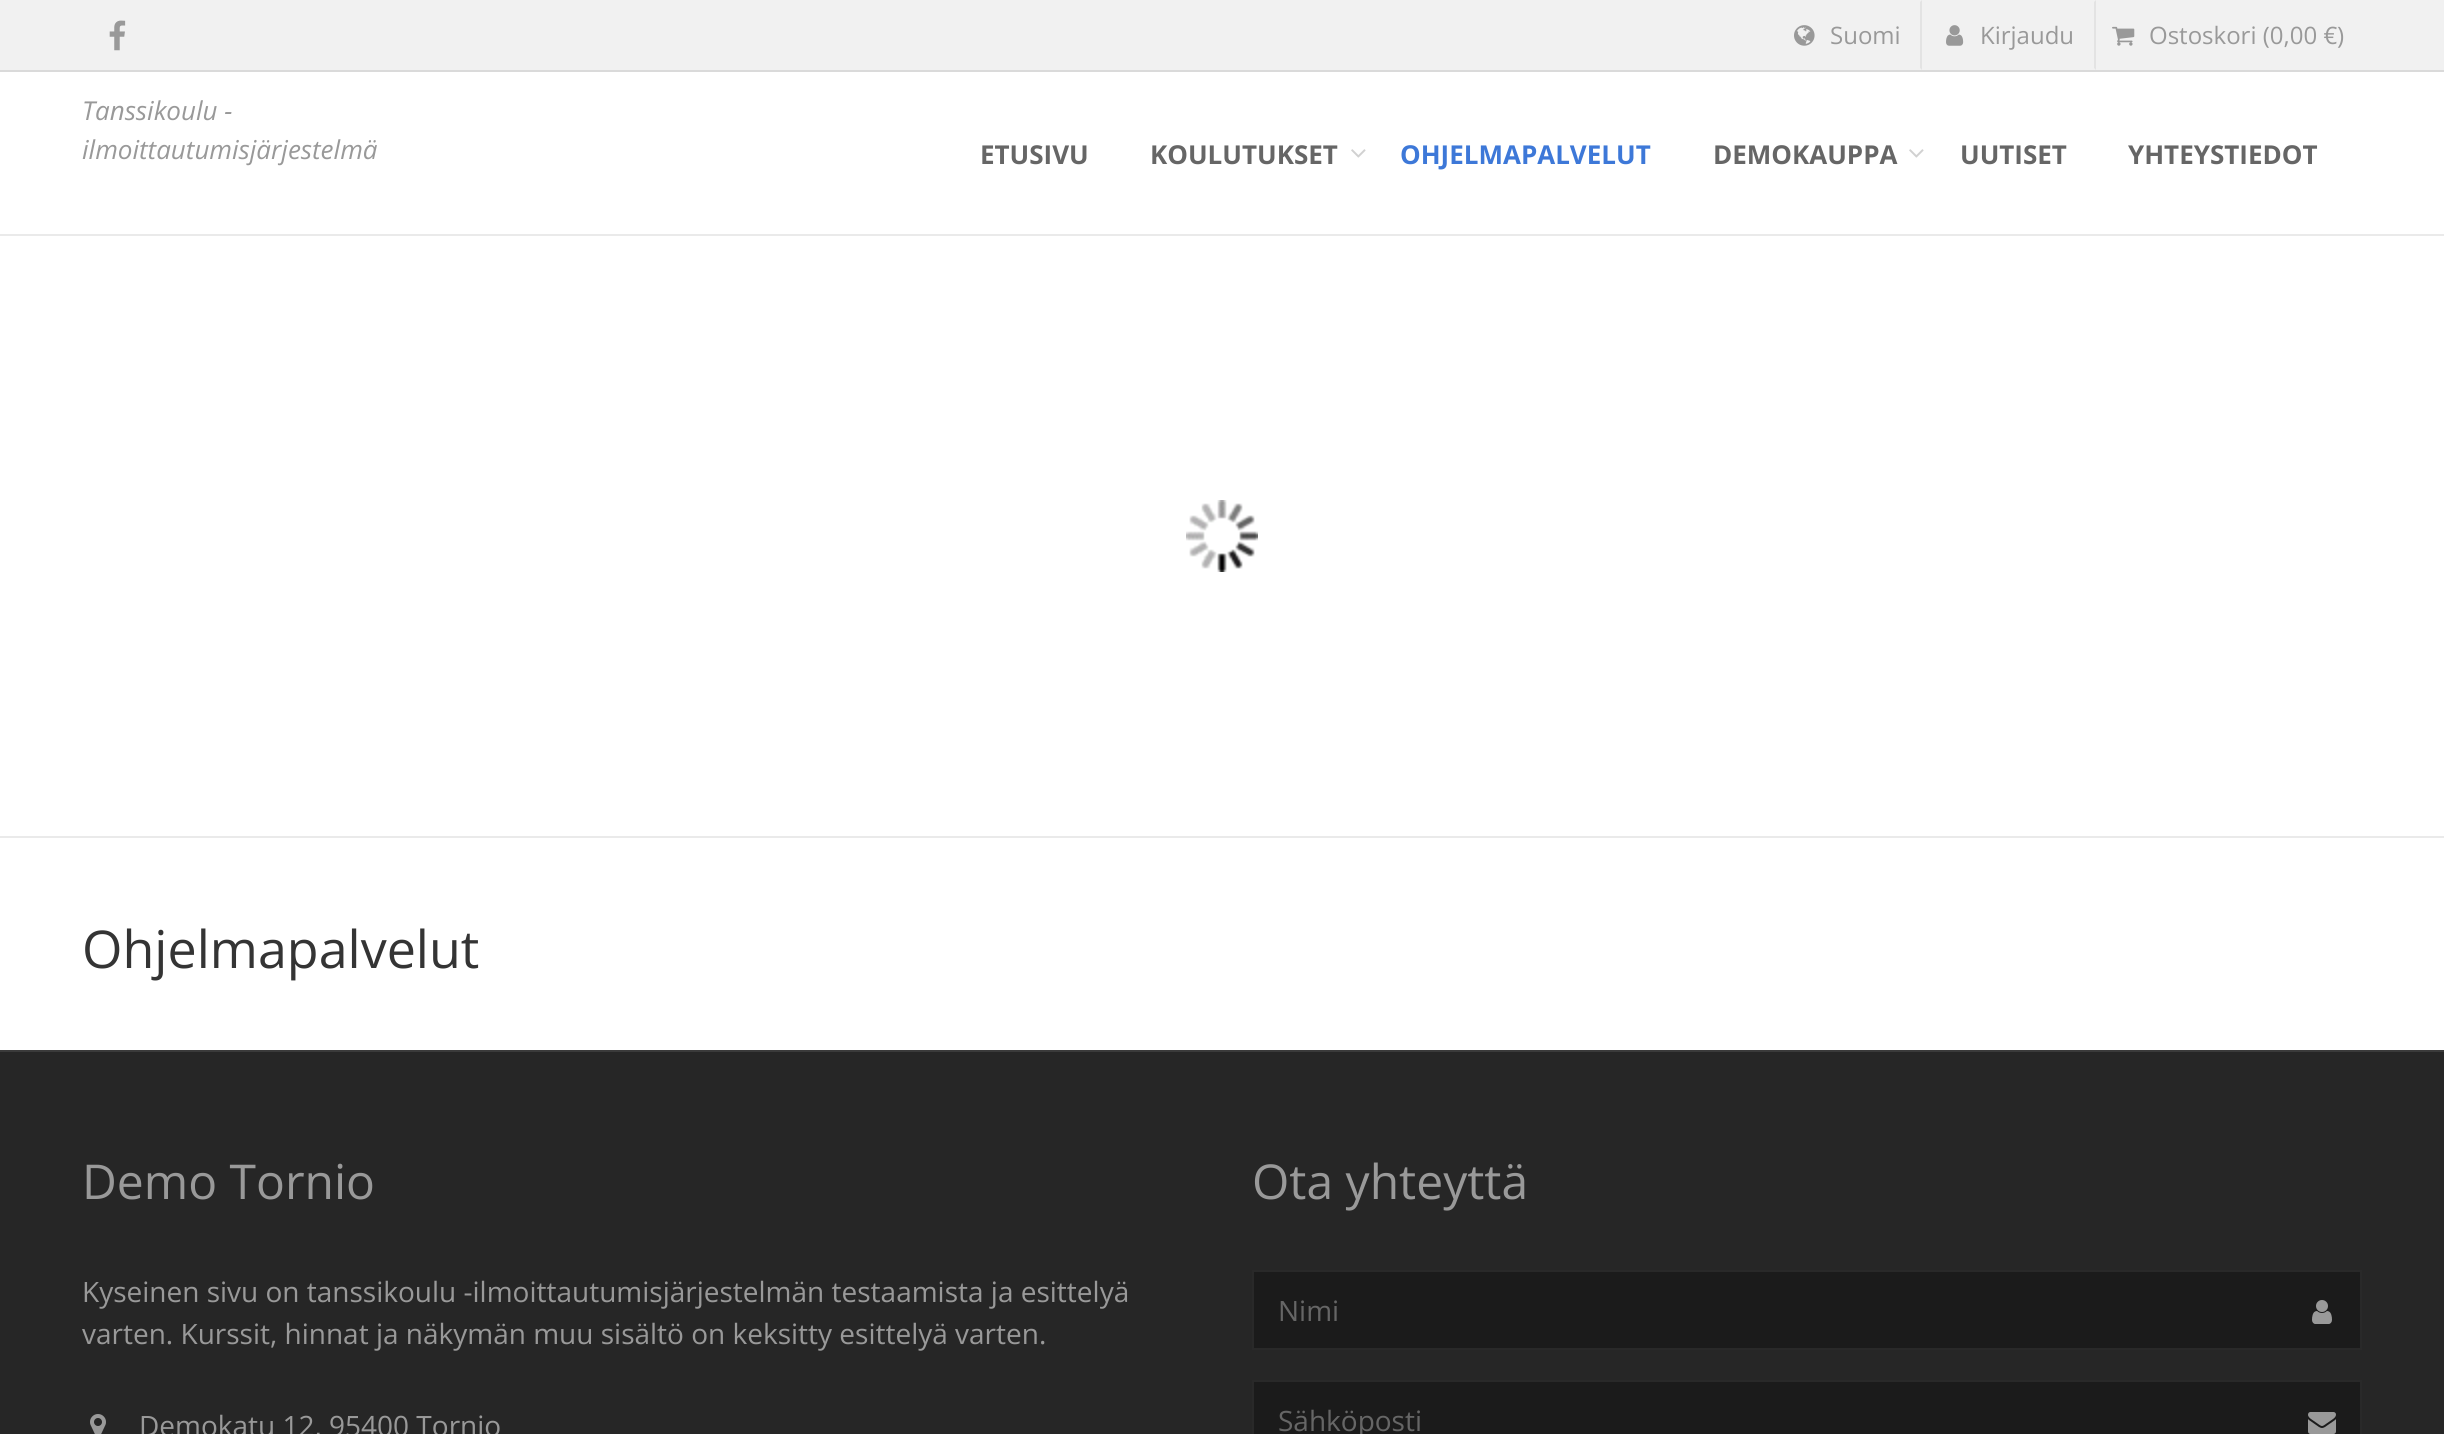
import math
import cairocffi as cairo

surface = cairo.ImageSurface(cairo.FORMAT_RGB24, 2444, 1434)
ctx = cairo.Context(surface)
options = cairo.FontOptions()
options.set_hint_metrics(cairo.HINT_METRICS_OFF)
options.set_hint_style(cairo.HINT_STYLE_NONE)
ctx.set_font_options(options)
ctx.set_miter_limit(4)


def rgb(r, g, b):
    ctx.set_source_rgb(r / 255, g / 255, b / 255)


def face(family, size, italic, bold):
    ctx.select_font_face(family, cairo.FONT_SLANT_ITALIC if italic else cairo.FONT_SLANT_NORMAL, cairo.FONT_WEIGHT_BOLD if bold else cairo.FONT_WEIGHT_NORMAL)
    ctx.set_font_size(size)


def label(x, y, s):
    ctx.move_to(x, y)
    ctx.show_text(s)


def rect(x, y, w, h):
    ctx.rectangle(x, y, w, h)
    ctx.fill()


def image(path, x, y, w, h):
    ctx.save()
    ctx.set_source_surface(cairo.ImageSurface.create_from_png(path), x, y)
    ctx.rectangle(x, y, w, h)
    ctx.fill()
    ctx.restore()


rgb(255, 255, 255)
ctx.paint()
rgb(241, 241, 241)
rect(0, 0, 2444, 70)
rgb(218, 218, 218)
rect(0, 70, 2444, 2)
image('image0.png', 109, 20, 17, 31)
rgb(227, 227, 227)
ctx.new_path()
ctx.move_to(1922, 0)
ctx.line_to(1922, 70)
ctx.line_to(1920, 68)
ctx.line_to(1920, 2)
ctx.close_path()
ctx.fill()
image('image1.png', 1794, 25, 21, 21)
face('Open Sans', 24, 0, 0)
rgb(153, 153, 153)
label(1830, 44, 'Suomi')
rgb(227, 227, 227)
ctx.new_path()
ctx.move_to(2096, 0)
ctx.line_to(2096, 70)
ctx.line_to(2094, 68)
ctx.line_to(2094, 2)
ctx.close_path()
ctx.fill()
image('image2.png', 1946, 25, 18, 21)
rgb(153, 153, 153)
label(1980, 44, 'Kirjaudu')
image('image3.png', 2112, 26, 23, 20)
label(2149, 44, 'Ostoskori (0,00 €)')
rgb(234, 234, 234)
rect(0, 234, 2444, 2)
face('Open Sans', 26, 1, 0)
rgb(153, 153, 153)
label(82, 120, 'Tanssikoulu -')
label(82, 159, 'ilmoittautumisjärjestelmä')
face('Open Sans', 26, 0, 1)
rgb(102, 102, 102)
label(980, 164, 'ETUSIVU')
label(1150, 164, 'KOULUTUKSET')
image('image4.png', 1351, 149, 15, 9)
rgb(61, 120, 216)
label(1400, 164, 'OHJELMAPALVELUT')
rgb(102, 102, 102)
label(1713, 164, 'DEMOKAUPPA')
image('image4.png', 1909, 149, 15, 9)
label(1960, 164, 'UUTISET')
label(2128, 164, 'YHTEYSTIEDOT')
rgb(234, 234, 234)
rect(0, 836, 2444, 2)
image('image5.png', 1186, 500, 72, 72)
face('Open Sans', 52, 0, 0)
rgb(52, 52, 52)
label(82, 968, 'Ohjelmapalvelut')
rgb(38, 38, 38)
rect(0, 1052, 2444, 382)
rgb(58, 58, 58)
rect(0, 1050, 2444, 2)
face('Open Sans', 48, 0, 0)
rgb(153, 153, 153)
label(82, 1199, 'Demo Tornio')
face('Open Sans', 28, 0, 0)
label(82, 1302, 'Kyseinen sivu on tanssikoulu -ilmoittautumisjärjestelmän testaamista ja esittelyä')
label(82, 1344, 'varten. Kurssit, hinnat ja näkymän muu sisältö on keksitty esittelyä varten.')
image('image6.png', 90, 1414, 16, 20)
label(139, 1436, 'Demokatu 12, 95400 Tornio')
face('Open Sans', 48, 0, 0)
label(1252, 1199, 'Ota yhteyttä')
rgb(27, 27, 27)
ctx.rectangle(1253, 1271, 1108, 78)
ctx.fill_preserve()
rgb(41, 41, 41)
ctx.stroke()
face('Open Sans', 28, 0, 0)
rgb(102, 102, 102)
label(1278, 1321, 'Nimi')
image('image7.png', 2312, 1300, 20, 24)
rgb(27, 27, 27)
ctx.rectangle(1253, 1381, 1108, 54)
ctx.fill_preserve()
rgb(41, 41, 41)
ctx.stroke()
rgb(102, 102, 102)
label(1278, 1431, 'Sähköposti')
image('image8.png', 2308, 1412, 28, 22)
surface.write_to_png('render.png')
